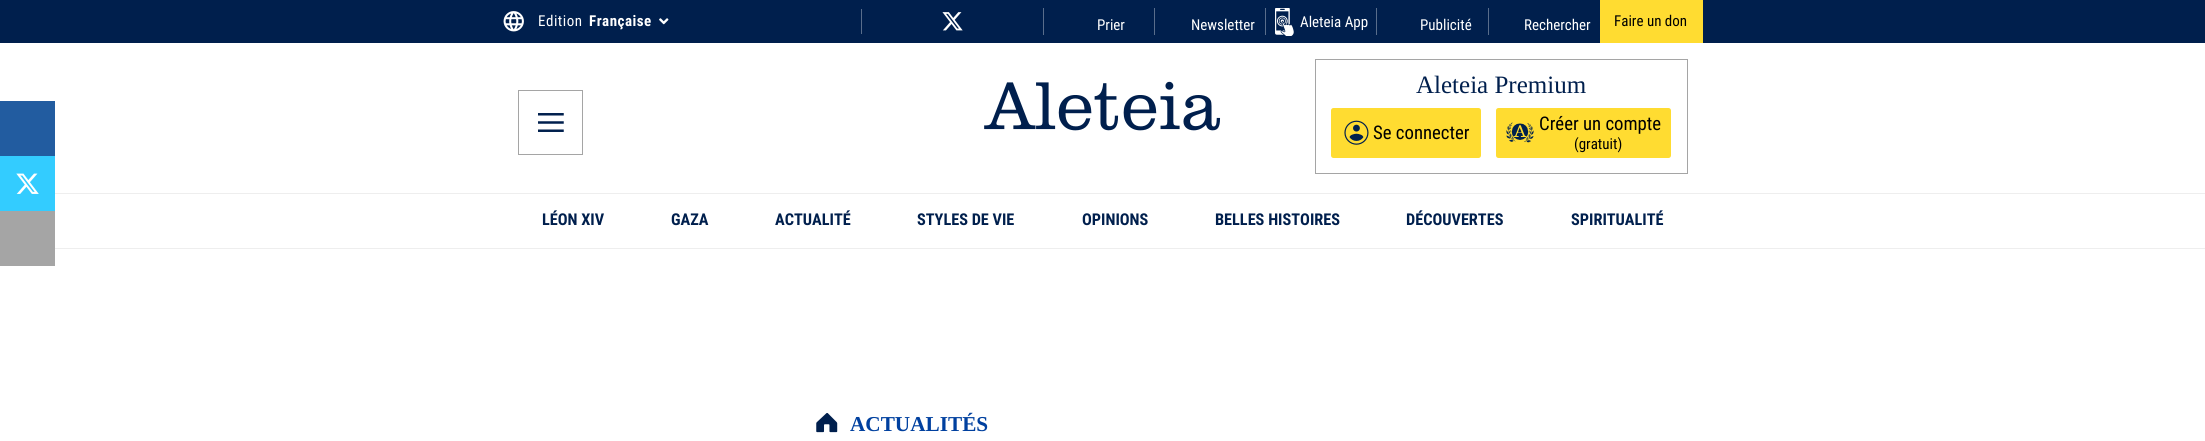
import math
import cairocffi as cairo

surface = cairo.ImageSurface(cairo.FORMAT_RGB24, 2205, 441)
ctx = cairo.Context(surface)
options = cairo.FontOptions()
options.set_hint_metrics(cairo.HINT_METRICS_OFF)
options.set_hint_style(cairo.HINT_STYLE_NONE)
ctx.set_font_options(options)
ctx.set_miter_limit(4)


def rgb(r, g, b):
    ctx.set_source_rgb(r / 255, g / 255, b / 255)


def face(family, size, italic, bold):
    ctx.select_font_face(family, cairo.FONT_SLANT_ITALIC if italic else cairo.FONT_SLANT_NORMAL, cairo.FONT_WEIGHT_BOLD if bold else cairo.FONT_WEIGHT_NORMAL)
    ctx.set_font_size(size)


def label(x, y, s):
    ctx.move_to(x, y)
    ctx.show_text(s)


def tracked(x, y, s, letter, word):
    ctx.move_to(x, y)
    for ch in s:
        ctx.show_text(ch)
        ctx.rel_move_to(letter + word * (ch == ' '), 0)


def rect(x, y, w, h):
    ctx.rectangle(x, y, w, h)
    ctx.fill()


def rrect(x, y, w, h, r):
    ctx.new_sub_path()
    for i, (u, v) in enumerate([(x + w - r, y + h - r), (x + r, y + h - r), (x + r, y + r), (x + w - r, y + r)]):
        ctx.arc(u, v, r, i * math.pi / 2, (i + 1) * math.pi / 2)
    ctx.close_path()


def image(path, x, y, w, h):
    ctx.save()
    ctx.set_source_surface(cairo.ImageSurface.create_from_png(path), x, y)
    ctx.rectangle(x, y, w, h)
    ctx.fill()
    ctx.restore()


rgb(255, 255, 255)
ctx.paint()
rgb(0, 31, 77)
rect(0, 0, 2205, 43)
image('image0.png', 503, 11, 21, 21)
face('Roboto Condensed', 15, 0, 0)
rgb(255, 255, 255)
tracked(538, 26, 'Edition', 0.5, 0)
face('Roboto Condensed', 15, 0, 1)
tracked(589, 26, 'Française', 0.5, 0)
image('image1.png', 659, 18, 10, 7)
rgb(89, 109, 139)
rect(861, 9, 1, 25)
image('image2.png', 942, 12, 21, 19)
rect(1043, 8, 1, 27)
face('Roboto Condensed', 15, 0, 0)
rgb(255, 255, 255)
label(1097, 30, 'Prier')
rgb(89, 109, 139)
rect(1154, 8, 1, 27)
rgb(255, 255, 255)
label(1191, 30, 'Newsletter')
rgb(89, 109, 139)
rect(1265, 8, 1, 27)
image('image3.png', 1275, 8, 19, 28)
rgb(255, 255, 255)
label(1300, 27, 'Aleteia App')
rgb(89, 109, 139)
rect(1376, 8, 1, 27)
rgb(255, 255, 255)
label(1420, 30, 'Publicité')
rgb(89, 109, 139)
rect(1488, 8, 1, 27)
rgb(255, 255, 255)
label(1524, 30, 'Rechercher')
rgb(255, 220, 49)
rect(1600, 0, 103, 43)
rgb(0, 0, 0)
label(1614, 26, 'Faire un don')
ctx.rectangle(518.5, 90.5, 64, 64)
rgb(165, 165, 165)
ctx.set_line_width(1)
ctx.stroke()
image('image4.png', 538, 113, 26, 19)
image('image5.png', 984, 81, 237, 50)
ctx.rectangle(1315.5, 59.5, 372, 114)
ctx.stroke()
face('Liberation Serif', 25, 0, 0)
rgb(0, 31, 77)
label(1416, 93, 'Aleteia Premium')
rgb(255, 220, 49)
rrect(1331, 108, 150, 50, 2.5)
ctx.fill()
image('image6.png', 1344, 120, 25, 25)
face('Roboto Condensed', 18.75, 0, 0)
rgb(0, 0, 0)
label(1373, 139, 'Se connecter')
rgb(255, 220, 49)
rrect(1496, 108, 175, 50, 2.5)
ctx.fill()
image('image7.png', 1506, 122, 28, 21)
rgb(0, 0, 0)
label(1539, 130, 'Créer un compte')
face('Roboto Condensed', 15, 0, 0)
label(1574, 149, '(gratuit)')
rgb(238, 238, 238)
rect(55, 193, 2150, 1)
rect(55, 248, 2150, 1)
face('Roboto Condensed', 16.25, 0, 1)
rgb(0, 31, 77)
label(542, 225, 'LÉON XIV')
label(671, 225, 'GAZA')
label(775, 225, 'ACTUALITÉ')
label(917, 225, 'STYLES DE VIE')
label(1082, 225, 'OPINIONS')
label(1215, 225, 'BELLES HISTOIRES')
label(1406, 225, 'DÉCOUVERTES')
label(1571, 225, 'SPIRITUALITÉ')
rgb(34, 92, 160)
rect(0, 101, 55, 55)
rgb(51, 204, 255)
rect(0, 156, 55, 55)
image('image8.png', 16, 173, 23, 21)
rgb(165, 165, 165)
rect(0, 211, 55, 55)
image('image9.png', 816, 413, 22, 20)
face('Liberation Serif', 21.25, 0, 1)
rgb(0, 64, 159)
label(850, 431, 'ACTUALITÉS')
surface.write_to_png('render.png')
